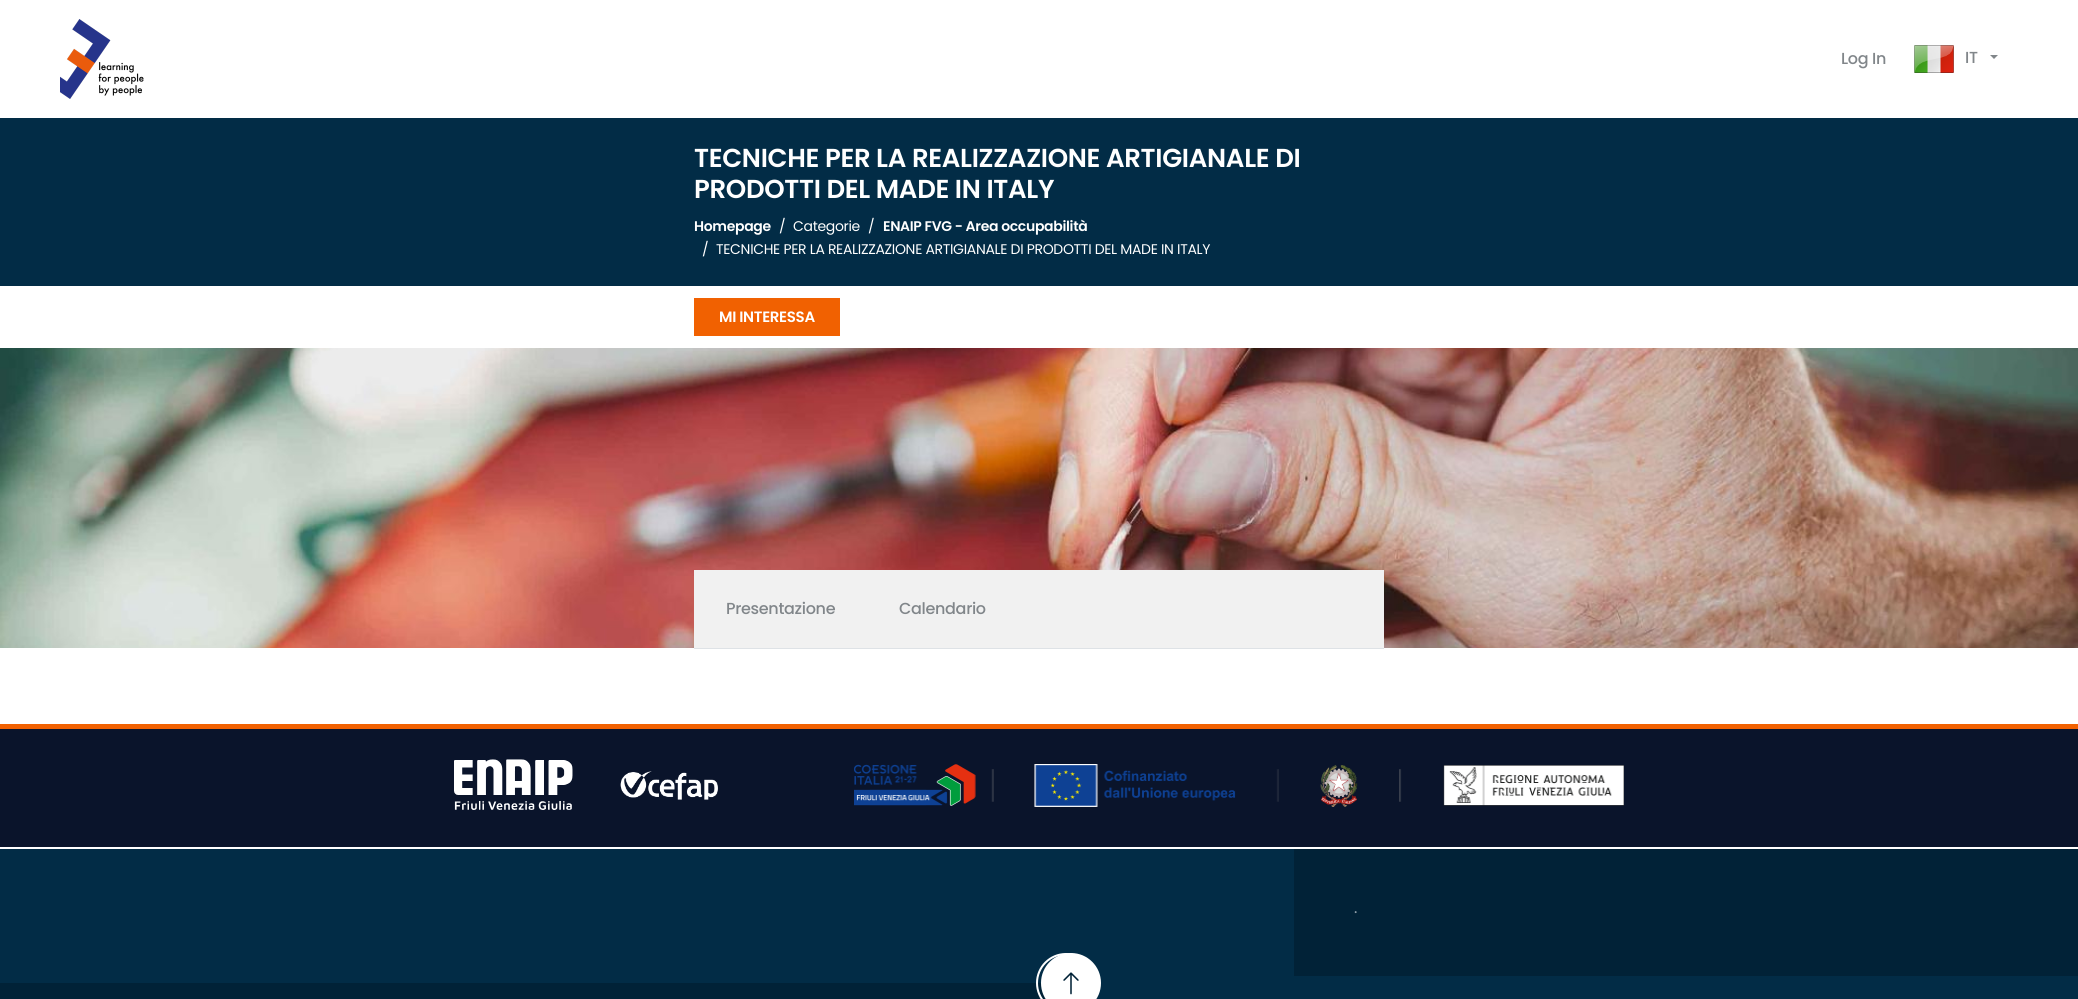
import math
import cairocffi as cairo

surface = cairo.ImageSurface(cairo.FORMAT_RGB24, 2078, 999)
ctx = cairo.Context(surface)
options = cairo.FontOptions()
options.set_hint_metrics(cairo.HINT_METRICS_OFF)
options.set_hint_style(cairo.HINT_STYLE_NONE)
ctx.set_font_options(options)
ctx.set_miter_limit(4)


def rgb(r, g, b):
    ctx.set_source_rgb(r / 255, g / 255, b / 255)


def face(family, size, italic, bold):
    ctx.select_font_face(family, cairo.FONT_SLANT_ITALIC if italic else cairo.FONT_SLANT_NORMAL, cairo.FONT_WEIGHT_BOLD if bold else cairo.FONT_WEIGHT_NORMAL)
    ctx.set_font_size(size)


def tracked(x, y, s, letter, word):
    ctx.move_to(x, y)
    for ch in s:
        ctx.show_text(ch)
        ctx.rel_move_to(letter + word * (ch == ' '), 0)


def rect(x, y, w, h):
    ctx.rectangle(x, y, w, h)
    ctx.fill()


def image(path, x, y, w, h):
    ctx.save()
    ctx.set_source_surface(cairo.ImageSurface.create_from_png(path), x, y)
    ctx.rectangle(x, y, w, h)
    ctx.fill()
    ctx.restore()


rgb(255, 255, 255)
ctx.paint()
image('image0.png', 60, 19, 84, 80)
face('Poppins Medium', 16, 0, 0)
rgb(129, 134, 138)
tracked(1841, 64, 'Log In', -0.32, 0)
image('image1.png', 1914, 45, 40, 28)
tracked(1965, 63, 'IT', -0.32, 0)
ctx.new_path()
ctx.move_to(1990, 55)
ctx.line_to(1998, 55)
ctx.line_to(1994, 59)
ctx.close_path()
ctx.fill()
rgb(2, 44, 70)
rect(0, 118, 2078, 168)
face('Poppins SemiBold', 26, 0, 0)
rgb(255, 255, 255)
tracked(694, 167, 'TECNICHE PER LA REALIZZAZIONE ARTIGIANALE DI', -0.32, 0)
tracked(694, 198, 'PRODOTTI DEL MADE IN ITALY', -0.32, 0)
face('Poppins SemiBold', 14, 0, 0)
tracked(694, 231, 'Homepage', -0.32, 0)
face('Poppins', 14, 0, 0)
tracked(779, 231, '/', -0.32, 0)
tracked(793, 231, 'Categorie', -0.32, 0)
tracked(868, 231, '/', -0.32, 0)
face('Poppins SemiBold', 14, 0, 0)
tracked(883, 231, 'ENAIP FVG - Area occupabilità', -0.32, 0)
face('Poppins', 14, 0, 0)
tracked(702, 254, '/', -0.32, 0)
tracked(716, 254, 'TECNICHE PER LA REALIZZAZIONE ARTIGIANALE DI PRODOTTI DEL MADE IN ITALY', -0.32, 0)
rgb(241, 97, 1)
rect(694, 298, 146, 38)
face('Poppins SemiBold', 15, 0, 0)
rgb(255, 255, 255)
tracked(719, 322, 'MI INTERESSA', -0.32, 0)
image('image2.png', 0, 348, 2078, 300)
rgb(241, 241, 241)
rect(694, 570, 690, 78)
rgb(222, 226, 230)
rect(694, 648, 690, 1)
face('Poppins Medium', 16, 0, 0)
rgb(129, 134, 138)
tracked(726, 614, 'Presentazione', -0.32, 0)
tracked(899, 614, 'Calendario', -0.32, 0)
rgb(2, 44, 70)
rect(0, 849, 2078, 134)
rgb(10, 20, 43)
rect(0, 729, 2078, 118)
rgb(241, 97, 1)
rect(0, 724, 2078, 5)
image('image3.png', 454, 759, 119, 51)
image('image4.png', 620, 771, 98, 29)
image('image5.png', 854, 764, 770, 43)
rgb(1, 34, 55)
rect(1294, 849, 784, 127)
face('Poppins', 16, 0, 0)
rgb(148, 163, 172)
tracked(1354, 913, '.', -0.32, 0)
rgb(1, 34, 55)
rect(0, 983, 1046, 16)
rgb(2, 44, 70)
rect(1096, 983, 982, 16)
rgb(255, 255, 255)
ctx.new_path()
ctx.arc(1071, 983, 30, 0, 2 * math.pi)
ctx.fill()
image('image6.png', 1063, 972, 16, 23)
ctx.arc(1066, 983, 29, 0, 2 * math.pi)
ctx.stroke()
surface.write_to_png('render.png')
